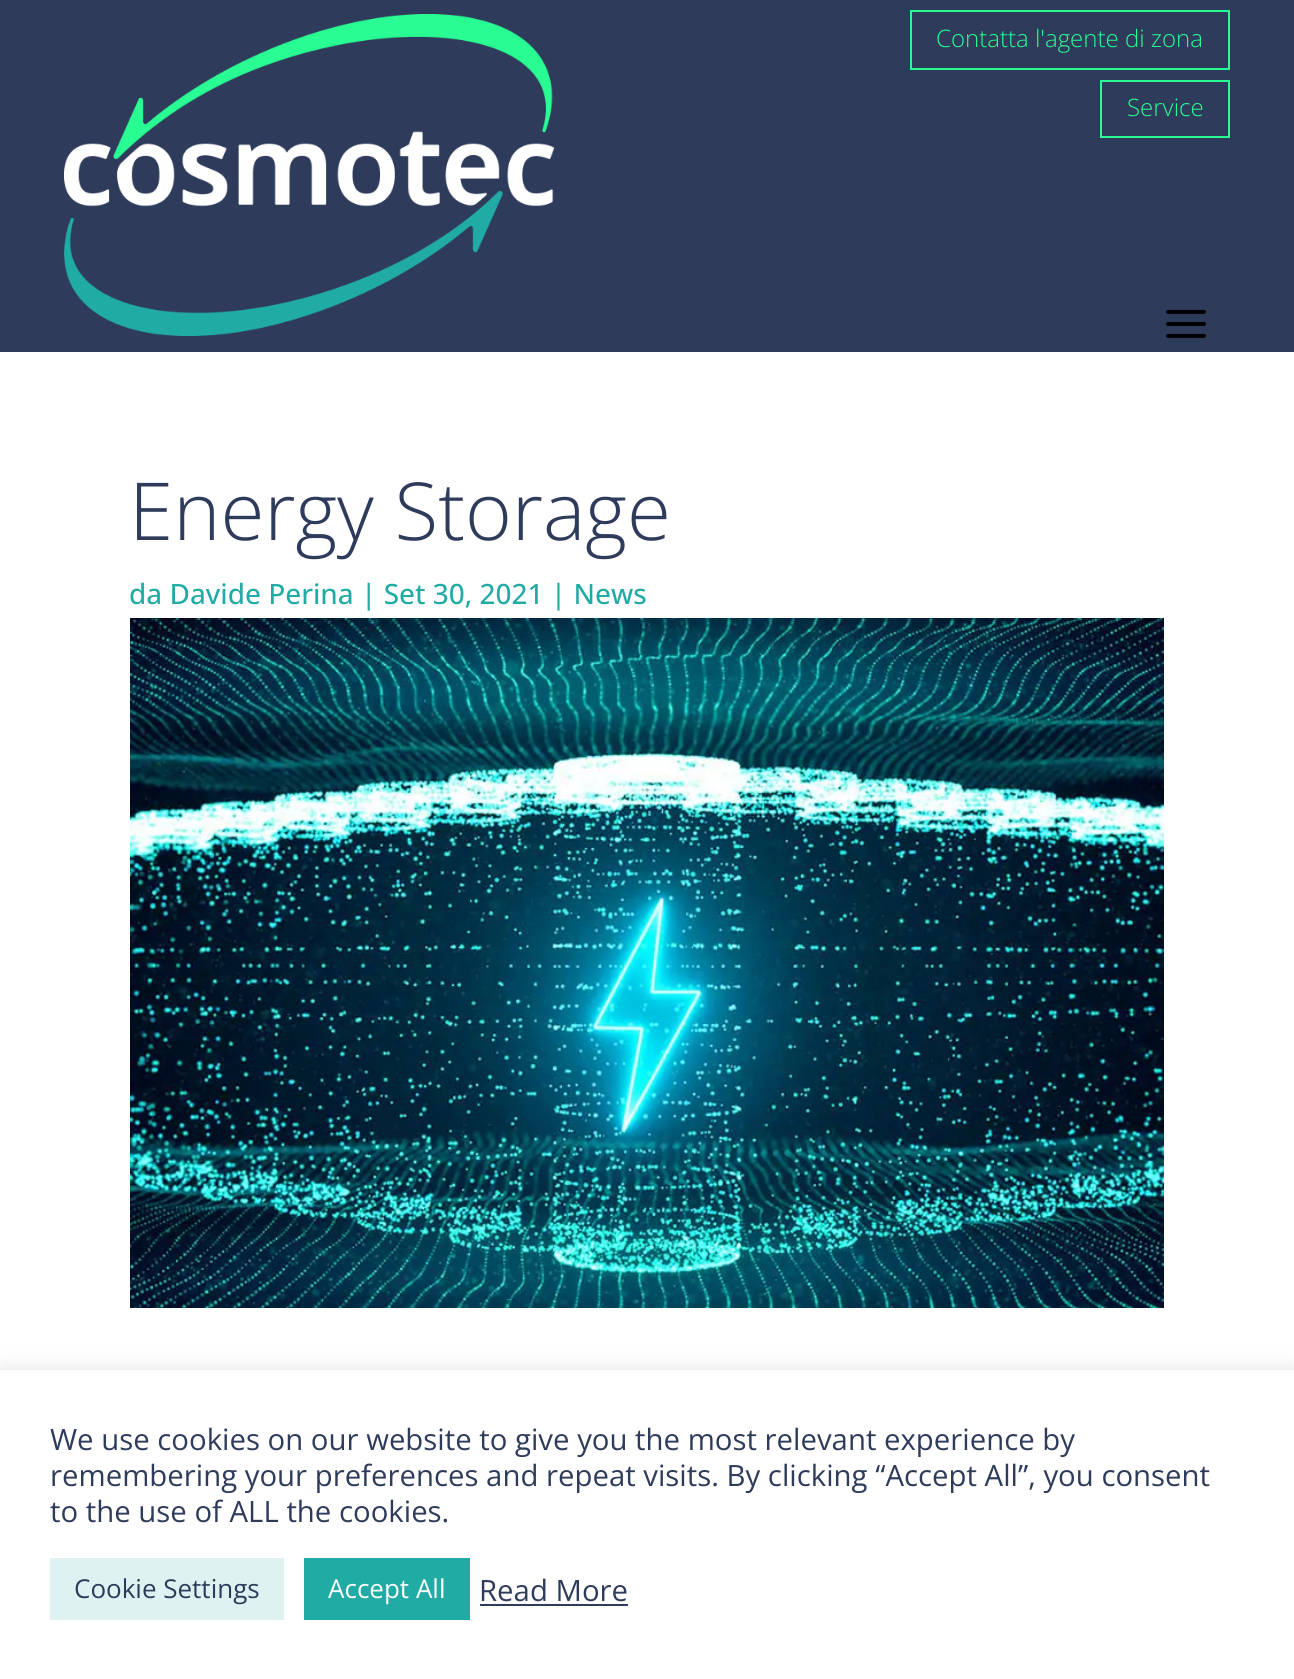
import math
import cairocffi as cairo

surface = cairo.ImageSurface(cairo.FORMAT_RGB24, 1294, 1679)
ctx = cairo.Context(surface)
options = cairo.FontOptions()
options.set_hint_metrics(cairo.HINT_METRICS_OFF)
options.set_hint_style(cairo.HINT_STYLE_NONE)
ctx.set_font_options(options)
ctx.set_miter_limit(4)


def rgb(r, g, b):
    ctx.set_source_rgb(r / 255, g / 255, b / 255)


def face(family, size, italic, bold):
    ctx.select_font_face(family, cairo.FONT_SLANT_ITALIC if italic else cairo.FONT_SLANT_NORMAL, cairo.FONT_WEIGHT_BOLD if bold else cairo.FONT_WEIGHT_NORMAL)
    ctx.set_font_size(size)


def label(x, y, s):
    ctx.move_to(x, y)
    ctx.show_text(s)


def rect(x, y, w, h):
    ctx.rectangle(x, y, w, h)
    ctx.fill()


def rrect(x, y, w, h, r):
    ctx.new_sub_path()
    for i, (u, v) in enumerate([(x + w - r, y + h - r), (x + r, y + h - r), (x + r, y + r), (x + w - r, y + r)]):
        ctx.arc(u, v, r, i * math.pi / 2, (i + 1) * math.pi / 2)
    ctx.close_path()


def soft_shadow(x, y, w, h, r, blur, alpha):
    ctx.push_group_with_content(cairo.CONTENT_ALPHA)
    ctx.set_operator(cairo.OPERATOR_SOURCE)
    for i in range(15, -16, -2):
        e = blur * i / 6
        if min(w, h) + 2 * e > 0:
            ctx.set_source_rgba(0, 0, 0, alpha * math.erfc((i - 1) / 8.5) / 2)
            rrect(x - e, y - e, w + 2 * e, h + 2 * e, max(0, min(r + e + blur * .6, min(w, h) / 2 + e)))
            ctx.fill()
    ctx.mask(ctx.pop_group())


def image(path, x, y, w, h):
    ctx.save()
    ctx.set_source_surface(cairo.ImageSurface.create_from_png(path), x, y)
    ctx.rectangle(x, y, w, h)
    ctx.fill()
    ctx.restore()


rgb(255, 255, 255)
ctx.paint()
rgb(46, 59, 91)
rect(0, 0, 1294, 352)
image('image0.png', 64, 14, 490, 322)
image('image1.png', 1166, 309, 40, 29)
ctx.rectangle(911, 11, 318, 58)
rgb(41, 252, 146)
ctx.stroke()
face('Open Sans Light', 24, 0, 0)
label(936, 47, 'Contatta l\'agente di zona')
ctx.rectangle(1101, 81, 128, 56)
ctx.stroke()
label(1127, 116, 'Service')
face('Open Sans Light', 80, 0, 0)
rgb(46, 59, 91)
label(129, 540, 'Energy Storage')
face('Open Sans Medium', 28, 0, 0)
rgb(33, 171, 165)
label(129, 604, 'da Davide Perina | Set 30, 2021 | News')
image('image2.png', 130, 618, 1034, 690)
rgb(172, 171, 171)
soft_shadow(0, 1368, 1294, 310, 0, 10, 0.3)
rgb(255, 255, 255)
rect(0, 1370, 1294, 309)
face('Open Sans', 29.35, 0, 0)
rgb(46, 59, 91)
label(50, 1450, 'We use cookies on our website to give you the most relevant experience by')
label(50, 1486, 'remembering your preferences and repeat visits. By clicking “Accept All”, you consent')
label(50, 1522, 'to the use of ALL the cookies.')
rgb(222, 242, 242)
rect(50, 1558, 234, 62)
face('Open Sans', 26, 0, 0)
rgb(46, 59, 91)
label(74, 1598, 'Cookie Settings')
rgb(33, 171, 165)
rect(304, 1558, 166, 62)
rgb(255, 255, 255)
label(328, 1598, 'Accept All')
face('Open Sans', 29.35, 0, 0)
rgb(46, 59, 91)
label(479, 1601, 'Read More')
rect(480, 1604, 148, 2)
surface.write_to_png('render.png')
